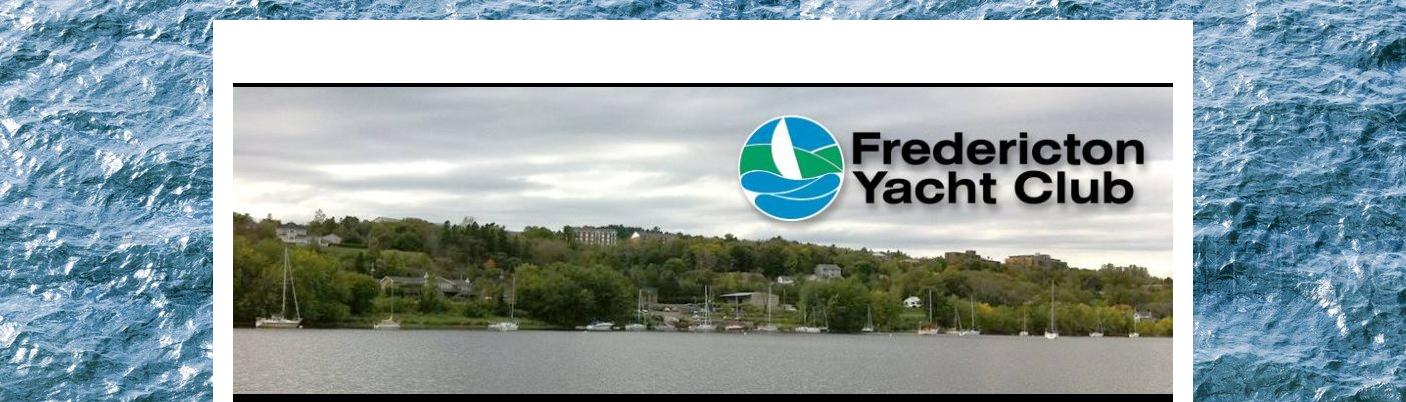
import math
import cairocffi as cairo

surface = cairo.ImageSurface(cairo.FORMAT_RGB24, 1406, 402)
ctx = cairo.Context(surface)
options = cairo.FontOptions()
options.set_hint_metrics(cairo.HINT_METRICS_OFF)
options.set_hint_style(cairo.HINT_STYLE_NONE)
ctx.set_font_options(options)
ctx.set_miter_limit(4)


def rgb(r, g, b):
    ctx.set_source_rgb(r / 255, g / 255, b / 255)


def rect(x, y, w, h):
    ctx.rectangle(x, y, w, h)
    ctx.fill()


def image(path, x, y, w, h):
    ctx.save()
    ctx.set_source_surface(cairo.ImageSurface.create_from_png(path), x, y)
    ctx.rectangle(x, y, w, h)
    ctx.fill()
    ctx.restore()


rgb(255, 255, 255)
ctx.paint()
image('image0.png', 0, 0, 1406, 402)
rgb(255, 255, 255)
rect(213, 20, 980, 382)
rgb(0, 0, 0)
rect(233, 83, 940, 4)
rect(233, 394, 940, 8)
image('image1.png', 233, 87, 940, 307)
surface.write_to_png('render.png')
